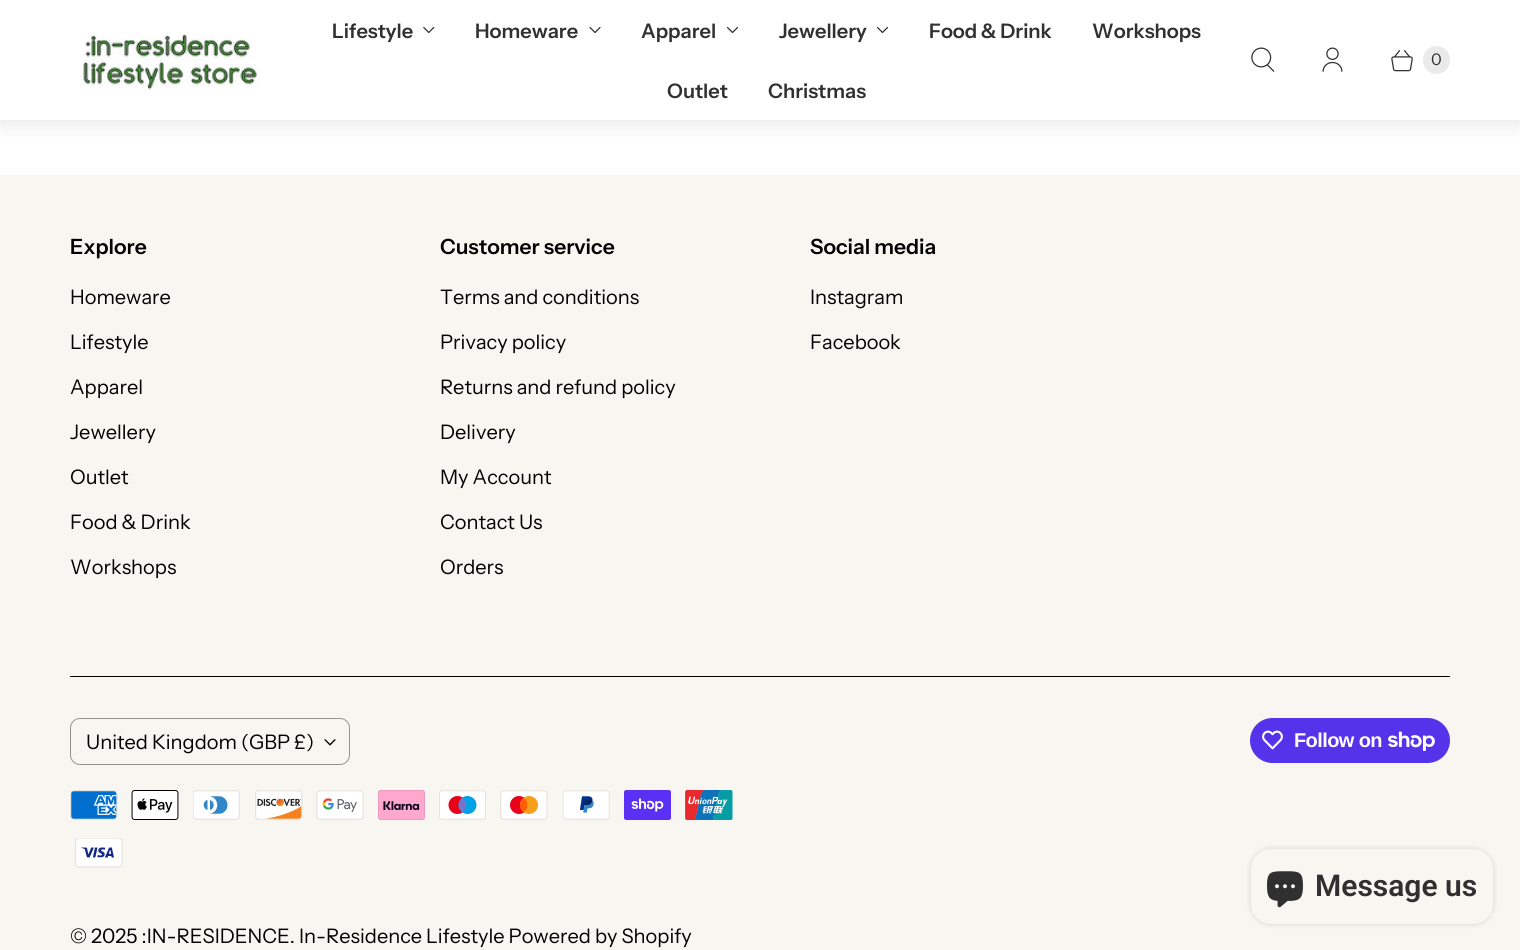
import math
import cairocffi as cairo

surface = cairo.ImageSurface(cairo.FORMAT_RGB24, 1520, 950)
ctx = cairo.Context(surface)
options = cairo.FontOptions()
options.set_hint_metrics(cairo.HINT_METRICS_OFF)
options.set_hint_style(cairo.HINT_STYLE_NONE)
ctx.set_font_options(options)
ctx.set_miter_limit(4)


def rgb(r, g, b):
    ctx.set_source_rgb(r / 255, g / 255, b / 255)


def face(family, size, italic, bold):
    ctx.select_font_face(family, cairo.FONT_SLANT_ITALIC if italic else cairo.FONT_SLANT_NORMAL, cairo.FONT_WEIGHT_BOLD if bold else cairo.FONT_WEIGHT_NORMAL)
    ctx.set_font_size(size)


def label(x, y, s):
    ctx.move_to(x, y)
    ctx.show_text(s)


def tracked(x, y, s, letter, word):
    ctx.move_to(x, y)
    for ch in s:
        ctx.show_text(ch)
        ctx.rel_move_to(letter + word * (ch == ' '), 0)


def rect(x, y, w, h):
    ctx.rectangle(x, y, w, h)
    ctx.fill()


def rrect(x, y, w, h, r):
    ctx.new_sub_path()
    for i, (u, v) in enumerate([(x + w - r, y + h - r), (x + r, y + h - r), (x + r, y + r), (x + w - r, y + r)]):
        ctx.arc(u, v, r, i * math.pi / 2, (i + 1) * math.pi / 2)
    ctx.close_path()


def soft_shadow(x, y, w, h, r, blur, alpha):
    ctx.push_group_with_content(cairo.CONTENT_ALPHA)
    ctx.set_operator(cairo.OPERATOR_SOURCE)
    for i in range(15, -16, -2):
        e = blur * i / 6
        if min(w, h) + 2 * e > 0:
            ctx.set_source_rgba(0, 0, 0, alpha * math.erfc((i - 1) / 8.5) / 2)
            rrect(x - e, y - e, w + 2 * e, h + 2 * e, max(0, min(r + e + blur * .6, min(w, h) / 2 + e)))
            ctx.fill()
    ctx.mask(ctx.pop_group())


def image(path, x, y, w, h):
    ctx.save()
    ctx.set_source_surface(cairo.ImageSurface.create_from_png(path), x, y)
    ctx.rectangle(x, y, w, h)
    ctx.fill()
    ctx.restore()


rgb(255, 255, 255)
ctx.paint()
rgb(0, 0, 0)
soft_shadow(-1, -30, 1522, 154, 0, 10, 0.1)
rgb(255, 255, 255)
rect(0, 0, 1520, 120)
image('image0.png', 79, 33, 181, 58)
face('Instrument Sans SemiBold', 20, 0, 0)
rgb(48, 48, 48)
label(332, 38, 'Lifestyle')
image('image1.png', 423, 26, 12, 8)
label(475, 38, 'Homeware')
image('image2.png', 589, 27, 12, 6)
label(641, 38, 'Apparel')
image('image3.png', 726, 26, 13, 8)
label(779, 38, 'Jewellery')
image('image3.png', 876, 26, 13, 8)
label(929, 38, 'Food & Drink')
label(1092, 38, 'Workshops')
label(667, 98, 'Outlet')
label(768, 98, 'Christmas')
image('image4.png', 1251, 47, 24, 25)
image('image5.png', 1322, 47, 21, 25)
image('image6.png', 1391, 50, 22, 22)
rgb(234, 234, 234)
rrect(1423, 46, 27, 28, 13.5)
ctx.fill()
face('Instrument Sans', 16, 0, 0)
rgb(48, 48, 48)
label(1431, 65, '0')
rgb(247, 246, 241)
rect(0, 175, 1520, 775)
face('Instrument Sans SemiBold', 21, 0, 0)
rgb(0, 0, 0)
label(70, 254, 'Explore')
face('Instrument Sans', 20, 0, 0)
label(70, 304, 'Homeware')
label(70, 349, 'Lifestyle')
label(70, 394, 'Apparel')
label(70, 439, 'Jewellery')
label(70, 484, 'Outlet')
label(70, 529, 'Food & Drink')
label(70, 574, 'Workshops')
face('Instrument Sans SemiBold', 21, 0, 0)
label(440, 254, 'Customer service')
face('Instrument Sans', 20, 0, 0)
label(440, 304, 'Terms and conditions')
label(440, 349, 'Privacy policy')
label(440, 394, 'Returns and refund policy')
label(440, 439, 'Delivery')
label(440, 484, 'My Account')
label(440, 529, 'Contact Us')
label(440, 574, 'Orders')
face('Instrument Sans SemiBold', 21, 0, 0)
label(810, 254, 'Social media')
face('Instrument Sans', 20, 0, 0)
label(810, 304, 'Instagram')
label(810, 349, 'Facebook')
rect(70, 676, 1380, 1)
rrect(70.5, 718.5, 279, 46, 9.5)
rgb(148, 148, 145)
ctx.set_line_width(1)
ctx.stroke()
rgb(0, 0, 0)
label(86, 749, 'United Kingdom (GBP £)')
image('image7.png', 324, 739, 12, 7)
image('image8.png', 70, 790, 48, 30)
image('image9.png', 131, 790, 48, 30)
image('image10.png', 193, 790, 47, 30)
image('image11.png', 255, 790, 48, 30)
image('image12.png', 316, 790, 48, 30)
image('image13.png', 378, 790, 47, 30)
image('image14.png', 439, 790, 47, 30)
image('image15.png', 500, 790, 48, 30)
image('image16.png', 563, 790, 47, 30)
image('image17.png', 624, 790, 47, 30)
image('image18.png', 685, 790, 48, 30)
image('image19.png', 75, 838, 48, 30)
label(70, 943, '© 2025 :IN-RESIDENCE. In-Residence Lifestyle Powered by Shopify')
rgb(84, 51, 235)
rrect(1250, 718, 200, 45, 22.5)
ctx.fill()
image('image20.png', 1262, 730, 21, 20)
face('Liberation Sans', 20, 0, 1)
rgb(255, 255, 255)
tracked(1294, 747, 'Follow on', -0.6, 0)
image('image21.png', 1388, 731, 47, 20)
rgb(0, 0, 0)
soft_shadow(1251, 849, 242, 75, 20, 3, 0.15)
rgb(247, 246, 241)
rrect(1251, 849, 242, 75, 20)
ctx.fill()
image('image22.png', 1267, 871, 36, 37)
face('Roboto SemiBold', 30, 0, 0)
rgb(48, 48, 48)
label(1315, 896, 'Message us')
surface.write_to_png('render.png')
